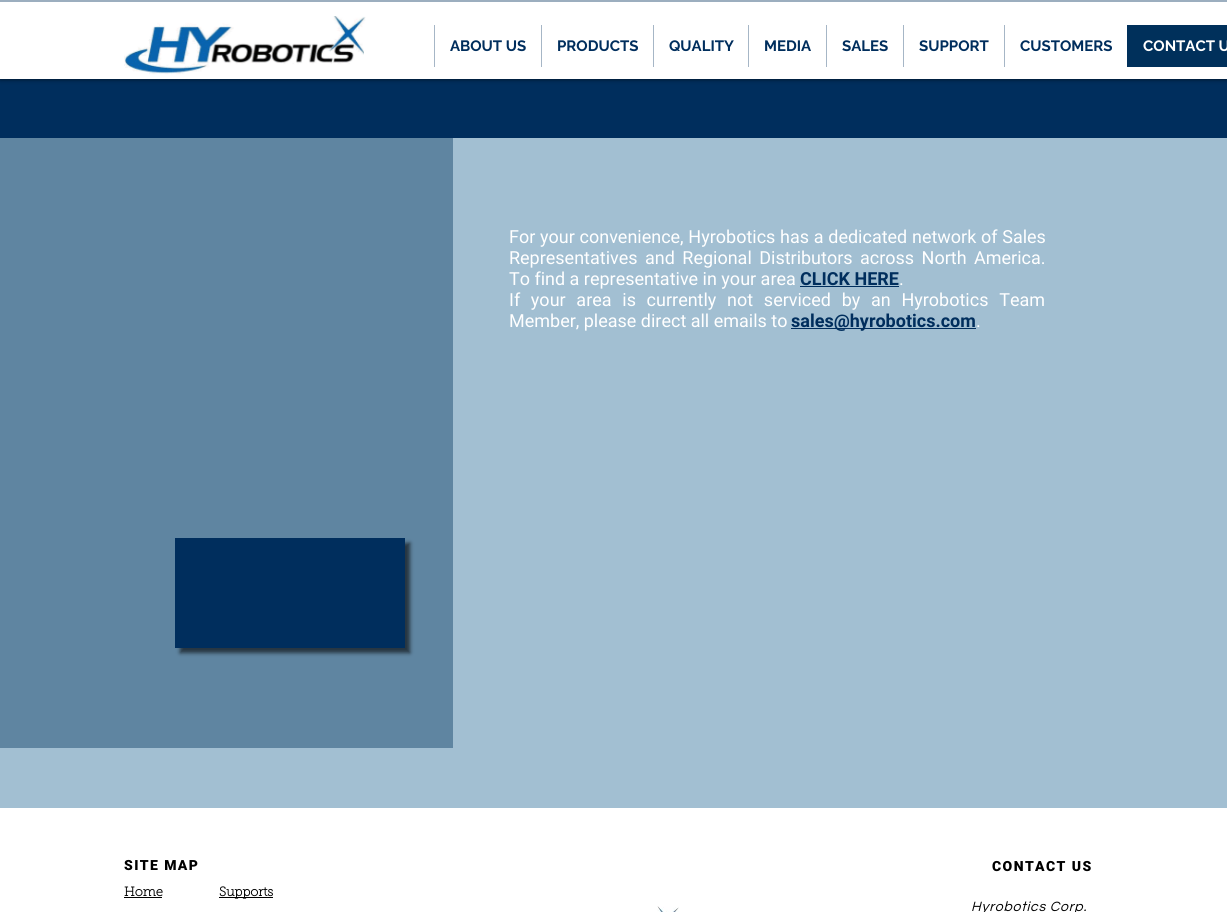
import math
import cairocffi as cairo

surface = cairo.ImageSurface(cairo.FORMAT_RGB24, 1227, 912)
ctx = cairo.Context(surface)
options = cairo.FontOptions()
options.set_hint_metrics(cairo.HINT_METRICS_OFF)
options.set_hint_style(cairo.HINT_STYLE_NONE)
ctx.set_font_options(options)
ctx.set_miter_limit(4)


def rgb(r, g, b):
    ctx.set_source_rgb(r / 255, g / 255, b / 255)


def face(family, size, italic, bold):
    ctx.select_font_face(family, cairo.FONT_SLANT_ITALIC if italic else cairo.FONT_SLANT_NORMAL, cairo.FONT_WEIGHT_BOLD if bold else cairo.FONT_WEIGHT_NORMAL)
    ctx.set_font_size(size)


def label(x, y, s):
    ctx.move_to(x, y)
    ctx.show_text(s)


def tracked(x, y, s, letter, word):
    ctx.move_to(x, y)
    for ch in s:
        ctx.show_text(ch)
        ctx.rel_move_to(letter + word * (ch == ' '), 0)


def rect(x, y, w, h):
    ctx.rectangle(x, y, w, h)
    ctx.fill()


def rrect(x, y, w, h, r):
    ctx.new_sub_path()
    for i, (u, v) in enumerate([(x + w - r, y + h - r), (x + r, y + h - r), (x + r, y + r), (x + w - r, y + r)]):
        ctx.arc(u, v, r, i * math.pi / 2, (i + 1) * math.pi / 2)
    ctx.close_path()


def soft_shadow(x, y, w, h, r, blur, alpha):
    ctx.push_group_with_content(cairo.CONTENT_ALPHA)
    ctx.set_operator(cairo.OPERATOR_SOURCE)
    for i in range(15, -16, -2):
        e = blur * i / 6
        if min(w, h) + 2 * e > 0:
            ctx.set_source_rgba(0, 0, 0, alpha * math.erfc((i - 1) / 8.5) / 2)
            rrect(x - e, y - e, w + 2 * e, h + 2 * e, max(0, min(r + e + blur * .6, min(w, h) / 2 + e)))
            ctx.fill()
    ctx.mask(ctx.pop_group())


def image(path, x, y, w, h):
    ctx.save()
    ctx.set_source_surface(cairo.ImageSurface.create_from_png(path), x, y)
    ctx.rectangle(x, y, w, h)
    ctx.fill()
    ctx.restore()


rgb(255, 255, 255)
ctx.paint()
rgb(0, 46, 93)
rect(0, 79, 1227, 59)
rgb(0, 0, 0)
soft_shadow(0, 0, 1227, 79, 0, 2.5, 0.7)
rgb(255, 255, 255)
rect(0, 2, 1227, 77)
rgb(156, 174, 191)
rect(0, 0, 1227, 2)
image('image0.png', 124, 16, 242, 59)
rgb(255, 255, 255)
rect(364, 51, 2, 4)
rgb(166, 182, 198)
rect(434, 25, 1, 42)
face('Raleway', 15, 0, 1)
rgb(0, 46, 93)
label(450, 51, 'ABOUT US')
rgb(166, 182, 198)
rect(541, 25, 1, 42)
rgb(0, 46, 93)
label(557, 51, 'PRODUCTS')
rgb(166, 182, 198)
rect(653, 25, 1, 42)
rgb(0, 46, 93)
label(669, 51, 'QUALITY')
rgb(166, 182, 198)
rect(748, 25, 1, 42)
rgb(0, 46, 93)
label(764, 51, 'MEDIA')
rgb(166, 182, 198)
rect(826, 25, 1, 42)
rgb(0, 46, 93)
label(842, 51, 'SALES')
rgb(166, 182, 198)
rect(903, 25, 1, 42)
rgb(0, 46, 93)
label(919, 51, 'SUPPORT')
rgb(166, 182, 198)
rect(1004, 25, 1, 42)
rgb(0, 46, 93)
label(1020, 51, 'CUSTOMERS')
rgb(0, 48, 91)
rect(1127, 25, 100, 42)
rgb(255, 255, 255)
label(1143, 51, 'CONTACT U')
rgb(162, 191, 210)
rect(0, 138, 1227, 670)
rgb(95, 133, 161)
rect(0, 138, 453, 610)
rgb(0, 0, 0)
soft_shadow(180, 543, 230, 110, 0, 2, 0.6)
rgb(0, 46, 93)
rect(175, 538, 230, 110)
face('Roboto', 18, 0, 0)
rgb(255, 255, 255)
tracked(509, 243, 'For your convenience, Hyrobotics has a dedicated network of Sales', 0, 0.25)
tracked(509, 264, 'Representatives and Regional Distributors across North America.', 0, 3)
label(509, 285, 'To find a representative in your area')
face('Roboto', 18, 0, 1)
rgb(0, 46, 93)
label(800, 285, 'CLICK HERE')
face('Roboto', 18, 0, 0)
rgb(255, 255, 255)
label(899, 285, '.')
rgb(0, 46, 93)
rect(800, 286, 99, 1)
rgb(255, 255, 255)
tracked(509, 306, 'If your area is currently not serviced by an Hyrobotics Team', 0, 6.25)
label(509, 327, 'Member, please direct all emails to')
rgb(0, 46, 93)
rect(791, 328, 185, 1)
face('Roboto', 18, 0, 1)
label(791, 327, 'sales@hyrobotics.com')
face('Roboto', 18, 0, 0)
rgb(255, 255, 255)
label(976, 327, '.')
face('Roboto Black', 14, 0, 0)
rgb(0, 0, 0)
tracked(124, 870, 'SITE MAP', 1.4, 0)
face('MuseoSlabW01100', 13, 0, 1)
label(124, 896, 'Home')
rect(124, 897, 38, 1)
rect(219, 897, 54, 1)
label(219, 896, 'Supports')
face('Roboto Black', 14, 0, 0)
tracked(992, 871, 'CONTACT US', 1.4, 0)
image('image1.png', 657, 906, 22, 6)
face('Questrial', 14, 1, 0)
tracked(971, 911, 'Hyrobotics Corp.', 0.75, 0)
surface.write_to_png('render.png')
